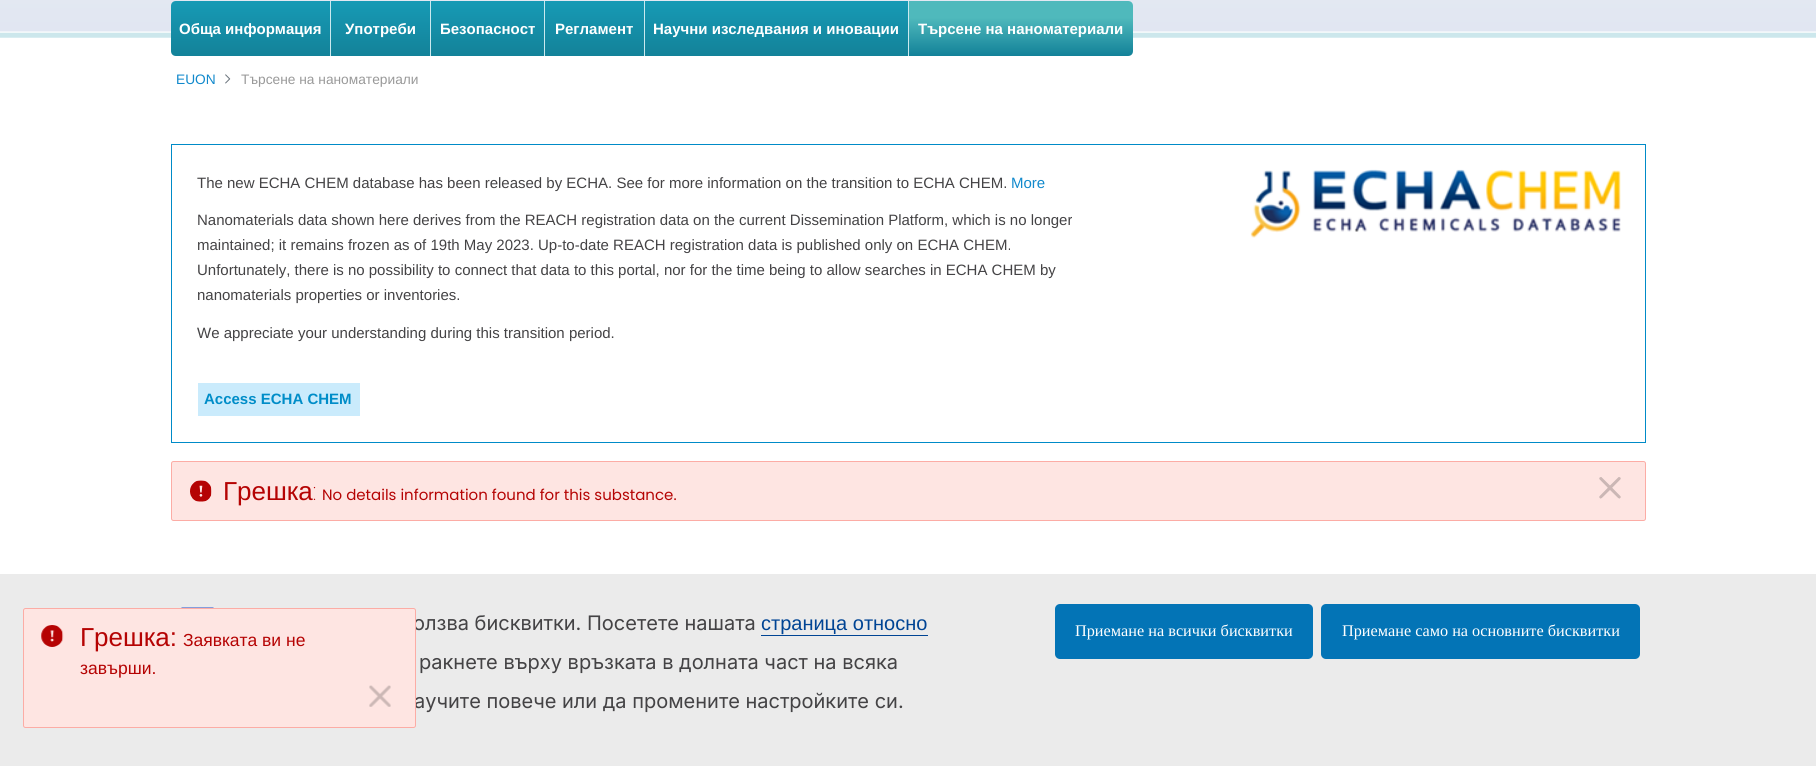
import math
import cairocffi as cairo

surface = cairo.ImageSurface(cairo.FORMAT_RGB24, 1816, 766)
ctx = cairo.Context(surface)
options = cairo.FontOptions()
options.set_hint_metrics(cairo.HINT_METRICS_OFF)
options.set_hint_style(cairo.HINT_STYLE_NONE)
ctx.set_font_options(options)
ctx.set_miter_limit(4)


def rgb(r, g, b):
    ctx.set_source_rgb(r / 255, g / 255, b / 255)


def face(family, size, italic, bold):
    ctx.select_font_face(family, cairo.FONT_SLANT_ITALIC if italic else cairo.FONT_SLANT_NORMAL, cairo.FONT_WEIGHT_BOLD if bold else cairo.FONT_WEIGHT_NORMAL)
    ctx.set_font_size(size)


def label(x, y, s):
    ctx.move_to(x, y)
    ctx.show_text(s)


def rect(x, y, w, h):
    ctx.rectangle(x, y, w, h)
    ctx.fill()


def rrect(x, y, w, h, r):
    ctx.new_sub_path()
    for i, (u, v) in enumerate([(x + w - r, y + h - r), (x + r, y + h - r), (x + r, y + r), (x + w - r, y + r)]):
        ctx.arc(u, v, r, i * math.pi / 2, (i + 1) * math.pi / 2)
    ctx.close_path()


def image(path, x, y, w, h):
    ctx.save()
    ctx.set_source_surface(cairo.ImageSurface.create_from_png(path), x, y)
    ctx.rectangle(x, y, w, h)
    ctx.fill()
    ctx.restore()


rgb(255, 255, 255)
ctx.paint()
image('image0.png', 0, 0, 1816, 38)
gradient = cairo.LinearGradient(251, 1.2, 251, 56)
gradient.add_color_stop_rgba(0, 0.09, 0.604, 0.71, 1)
gradient.add_color_stop_rgba(1, 0.075, 0.51, 0.6, 1)
ctx.set_source(gradient)
ctx.new_path()
ctx.move_to(176, 1)
ctx.line_to(331, 1)
ctx.line_to(331, 56)
ctx.line_to(176, 56)
ctx.curve_to(173, 56, 171, 54, 171, 51)
ctx.line_to(171, 6)
ctx.curve_to(171, 3, 173, 1, 176, 1)
ctx.close_path()
ctx.fill()
rgb(203, 233, 239)
rect(330, 1, 1, 55)
face('Liberation Sans', 15, 0, 1)
rgb(255, 255, 255)
label(179, 34, 'Обща информация')
gradient = cairo.LinearGradient(381, 1.2, 381, 56)
gradient.add_color_stop_rgba(0, 0.09, 0.604, 0.71, 1)
gradient.add_color_stop_rgba(1, 0.075, 0.51, 0.6, 1)
ctx.set_source(gradient)
rect(331, 1, 99, 55)
rgb(203, 233, 239)
rect(430, 1, 1, 55)
rgb(255, 255, 255)
label(345, 34, 'Употреби')
gradient = cairo.LinearGradient(488, 1.2, 488, 56)
gradient.add_color_stop_rgba(0, 0.09, 0.604, 0.71, 1)
gradient.add_color_stop_rgba(1, 0.075, 0.51, 0.6, 1)
ctx.set_source(gradient)
rect(431, 1, 113, 55)
rgb(203, 233, 239)
rect(544, 1, 1, 55)
rgb(255, 255, 255)
label(440, 34, 'Безопасност')
gradient = cairo.LinearGradient(594, 1.2, 594, 56)
gradient.add_color_stop_rgba(0, 0.09, 0.604, 0.71, 1)
gradient.add_color_stop_rgba(1, 0.075, 0.51, 0.6, 1)
ctx.set_source(gradient)
rect(545, 1, 99, 55)
rgb(203, 233, 239)
rect(644, 1, 1, 55)
rgb(255, 255, 255)
label(555, 34, 'Регламент')
gradient = cairo.LinearGradient(776, 1.2, 776, 56)
gradient.add_color_stop_rgba(0, 0.09, 0.604, 0.71, 1)
gradient.add_color_stop_rgba(1, 0.075, 0.51, 0.6, 1)
ctx.set_source(gradient)
rect(645, 1, 263, 55)
rgb(203, 233, 239)
rect(908, 1, 1, 55)
rgb(255, 255, 255)
label(653, 34, 'Научни изследвания и иновации')
gradient = cairo.LinearGradient(1020, 1.2, 1020, 56)
gradient.add_color_stop_rgba(0.25, 0.31, 0.725, 0.737, 1)
gradient.add_color_stop_rgba(0.3, 0.31, 0.725, 0.737, 1)
gradient.add_color_stop_rgba(0.99, 0.075, 0.51, 0.6, 1)
ctx.set_source(gradient)
ctx.new_path()
ctx.move_to(909, 1)
ctx.line_to(1128, 1)
ctx.curve_to(1131, 1, 1133, 3, 1133, 6)
ctx.line_to(1133, 51)
ctx.curve_to(1133, 54, 1131, 56, 1128, 56)
ctx.line_to(909, 56)
ctx.close_path()
ctx.fill()
rgb(255, 255, 255)
label(918, 34, 'Търсене на наноматериали')
face('Liberation Sans', 13.75, 0, 0)
rgb(17, 137, 204)
label(176, 84, 'EUON')
image('image1.png', 225, 74, 6, 10)
rgb(153, 153, 153)
label(241, 84, 'Търсене на наноматериали')
ctx.rectangle(171.5, 144.5, 1474, 298)
rgb(0, 139, 200)
ctx.set_line_width(1)
ctx.stroke()
face('Liberation Sans', 15, 0, 0)
rgb(68, 67, 69)
label(197, 188, 'The new ECHA CHEM database has been released by ECHA. See for more information on the transition to ECHA CHEM.')
rgb(17, 137, 204)
label(1011, 188, 'More')
rgb(68, 67, 69)
label(197, 225, 'Nanomaterials data shown here derives from the REACH registration data on the current Dissemination Platform, which is no longer')
label(197, 250, 'maintained; it remains frozen as of 19th May 2023. Up-to-date REACH registration data is published only on ECHA CHEM.')
label(197, 275, 'Unfortunately, there is no possibility to connect that data to this portal, nor for the time being to allow searches in ECHA CHEM by')
label(197, 300, 'nanomaterials properties or inventories.')
label(197, 338, 'We appreciate your understanding during this transition period.')
rgb(202, 235, 252)
rect(198, 383, 162, 33)
face('Liberation Sans', 15, 0, 1)
rgb(0, 141, 200)
label(204, 404, 'Access ECHA CHEM')
image('image2.png', 1250, 169, 371, 69)
rgb(254, 229, 226)
rrect(171.5, 461.5, 1474, 59, 2)
ctx.fill_preserve()
rgb(252, 172, 165)
ctx.stroke()
image('image3.png', 190, 480, 22, 22)
face('Liberation Sans', 26, 0, 0)
rgb(181, 3, 3)
label(223, 500, 'Грешка')
face('Poppins ExtraLight', 26, 0, 0)
label(313, 500, ':')
face('Poppins', 15, 0, 0)
label(322, 500, 'No details information found for this substance.')
image('image4.png', 1599, 477, 22, 22)
rgb(235, 235, 235)
rect(0, 574, 1816, 192)
face('Inter', 20, 0, 0)
rgb(68, 67, 69)
label(413, 630, 'олзва бисквитки. Посетете нашата')
label(414, 708, 'аучите повече или да промените настройките си.')
rgb(254, 229, 226)
rrect(23.5, 608.5, 392, 119, 2)
ctx.fill_preserve()
rgb(252, 172, 165)
ctx.stroke()
image('image5.png', 41, 625, 23, 22)
face('Liberation Sans', 26, 0, 0)
rgb(181, 3, 3)
label(80, 646, 'Грешка:')
face('Liberation Sans', 17.5, 0, 0)
label(183, 646, 'Заявката ви не')
label(80, 674, 'завърши.')
image('image6.png', 369, 685, 22, 22)
image('image7.png', 181, 607, 33, 1)
face('Liberation Sans', 20, 0, 0)
rgb(0, 68, 148)
label(761, 630, 'страница относно')
rect(761, 635, 167, 1)
face('Inter', 20, 0, 0)
rgb(68, 67, 69)
label(419, 669, 'ракнете върху връзката в долната част на всяка')
rgb(3, 116, 182)
rrect(1055, 604, 258, 55, 5)
ctx.fill()
face('Liberation Serif', 16.25, 0, 0)
rgb(255, 255, 255)
label(1075, 636, 'Приемане на всички бисквитки')
rgb(3, 116, 182)
rrect(1321, 604, 319, 55, 5)
ctx.fill()
rgb(255, 255, 255)
label(1342, 636, 'Приемане само на основните бисквитки')
surface.write_to_png('render.png')
